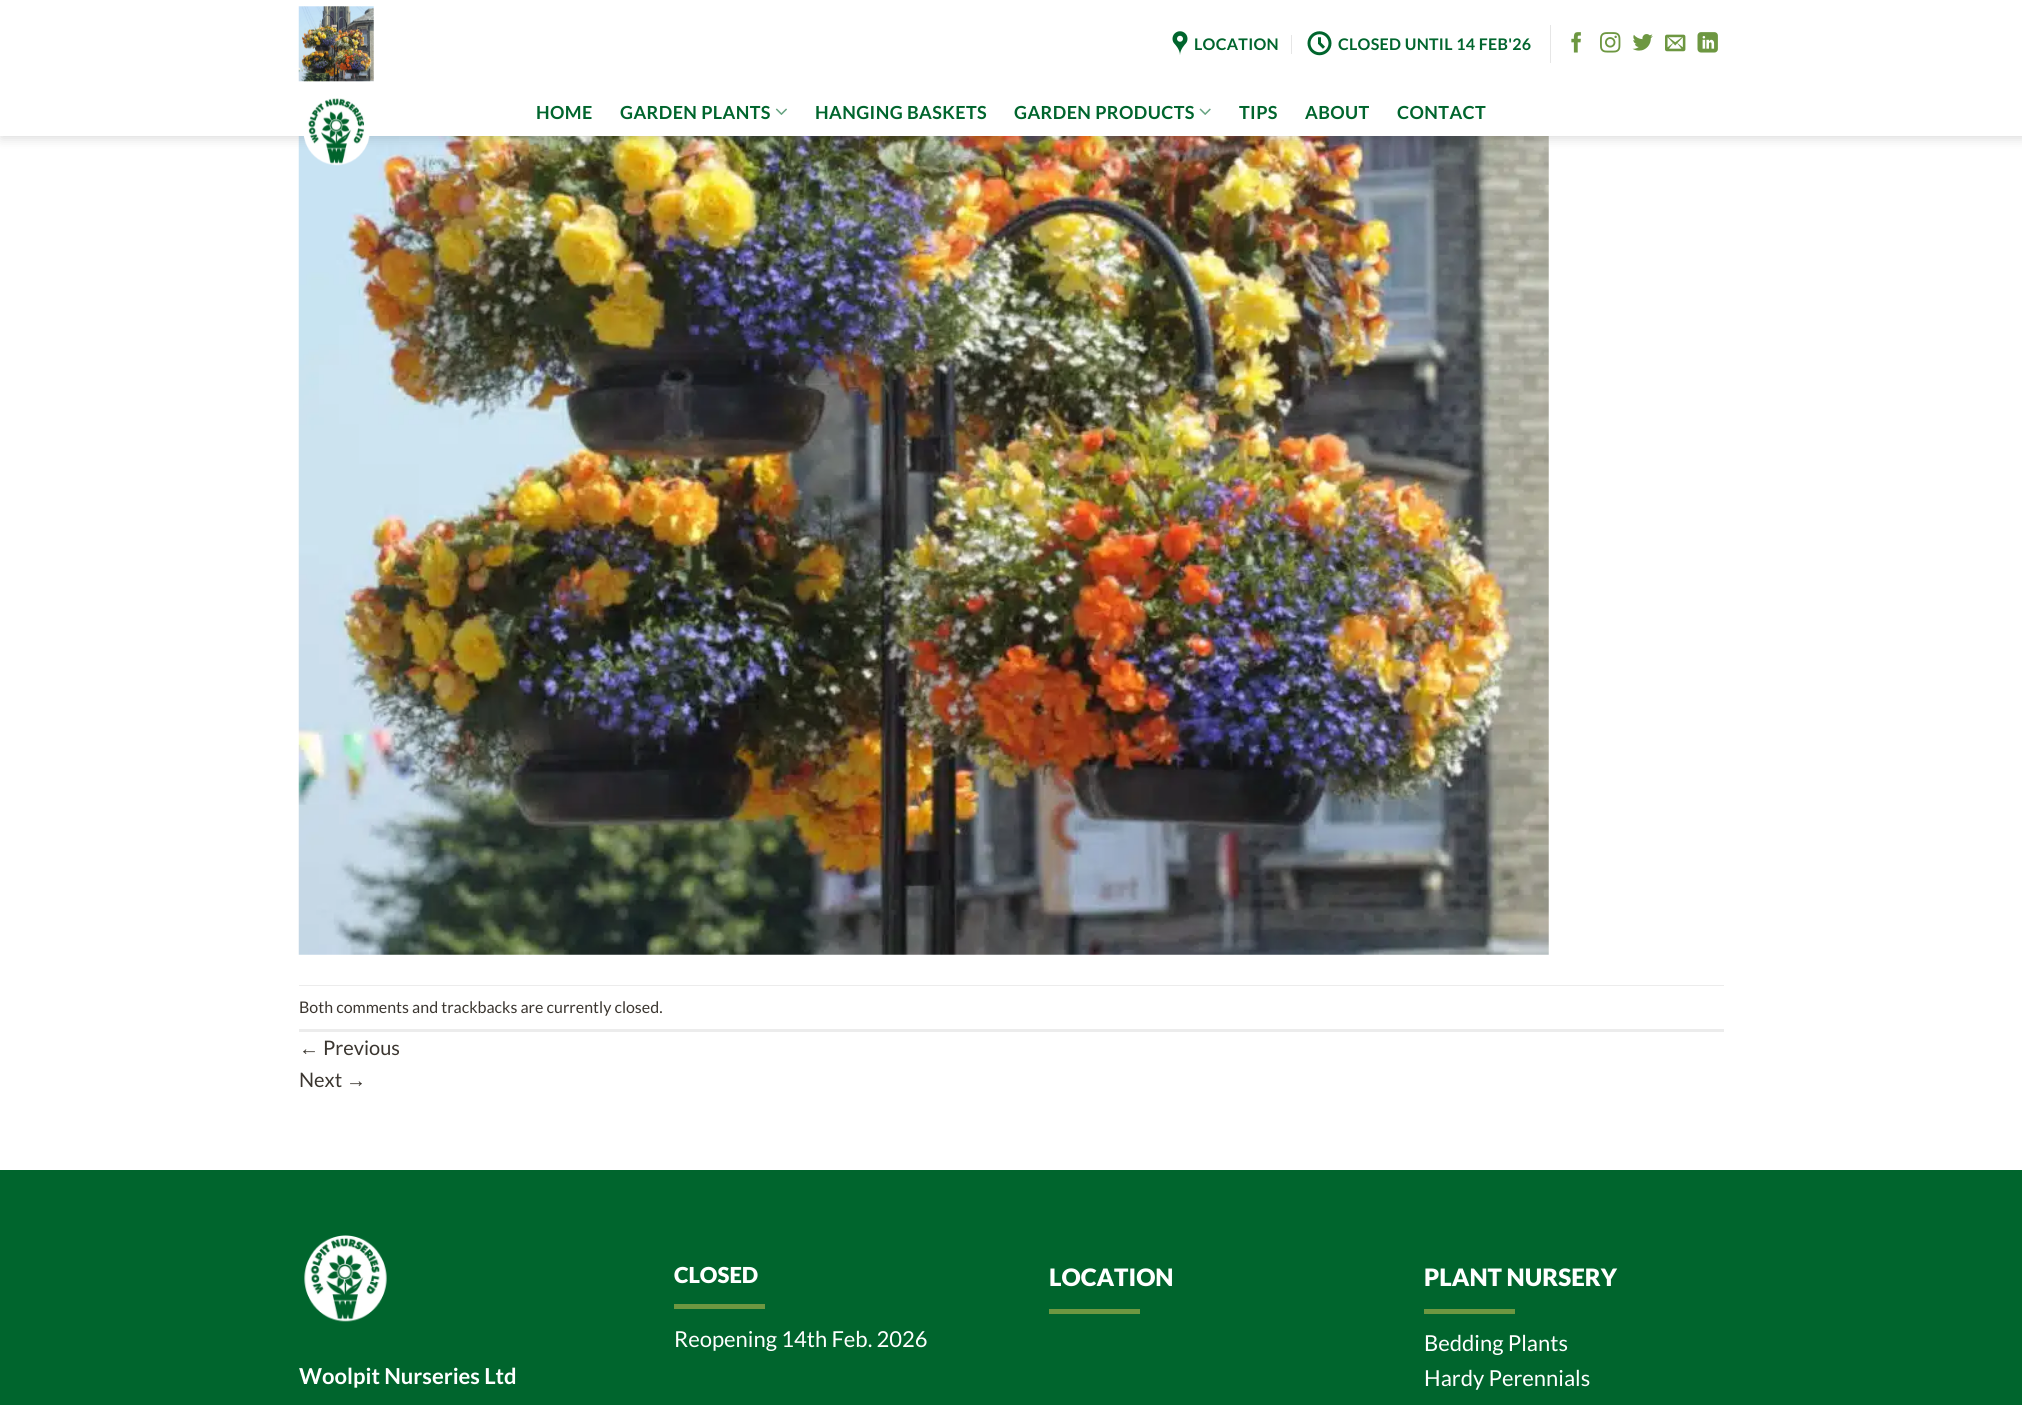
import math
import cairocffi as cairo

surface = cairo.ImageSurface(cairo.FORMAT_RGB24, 2022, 1405)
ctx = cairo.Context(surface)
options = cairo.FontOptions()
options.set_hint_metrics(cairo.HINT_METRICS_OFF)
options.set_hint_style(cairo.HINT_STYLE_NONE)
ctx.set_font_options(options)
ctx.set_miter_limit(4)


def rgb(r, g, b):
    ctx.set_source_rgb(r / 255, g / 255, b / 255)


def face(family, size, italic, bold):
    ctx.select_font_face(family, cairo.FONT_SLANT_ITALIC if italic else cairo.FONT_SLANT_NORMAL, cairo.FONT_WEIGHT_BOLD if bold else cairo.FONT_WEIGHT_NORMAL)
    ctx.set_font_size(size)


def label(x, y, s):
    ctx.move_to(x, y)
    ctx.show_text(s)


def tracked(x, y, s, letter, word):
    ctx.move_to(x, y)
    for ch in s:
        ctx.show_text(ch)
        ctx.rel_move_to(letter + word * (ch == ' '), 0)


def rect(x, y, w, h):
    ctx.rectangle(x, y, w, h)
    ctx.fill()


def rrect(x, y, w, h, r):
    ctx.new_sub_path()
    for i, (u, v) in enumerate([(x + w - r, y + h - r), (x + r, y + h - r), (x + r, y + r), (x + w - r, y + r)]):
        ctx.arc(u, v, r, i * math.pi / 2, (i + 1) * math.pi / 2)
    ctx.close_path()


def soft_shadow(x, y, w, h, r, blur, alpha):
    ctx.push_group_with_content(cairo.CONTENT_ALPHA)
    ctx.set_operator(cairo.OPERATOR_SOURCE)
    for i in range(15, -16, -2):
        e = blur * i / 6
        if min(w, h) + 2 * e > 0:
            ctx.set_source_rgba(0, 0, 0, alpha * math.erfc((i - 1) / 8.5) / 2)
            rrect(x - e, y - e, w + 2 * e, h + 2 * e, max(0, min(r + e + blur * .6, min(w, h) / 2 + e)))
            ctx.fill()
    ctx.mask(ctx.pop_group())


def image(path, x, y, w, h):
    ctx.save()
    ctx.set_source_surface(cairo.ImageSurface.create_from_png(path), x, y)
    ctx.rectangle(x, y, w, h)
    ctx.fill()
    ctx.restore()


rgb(255, 255, 255)
ctx.paint()
image('image11.png', 298, 136, 1251, 819)
rgb(0, 0, 0)
soft_shadow(1, 1, 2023, 137, 0, 6, 0.15)
rgb(255, 255, 255)
rect(0, 0, 2022, 136)
image('image0.png', 298, 6, 76, 76)
image('image1.png', 303, 98, 67, 68)
image('image2.png', 1172, 31, 16, 24)
face('Lato', 16, 0, 1)
rgb(0, 101, 45)
tracked(1194, 50, 'LOCATION', 0.3, 0)
rgb(230, 230, 230)
rect(1291, 35, 1, 19)
image('image3.png', 1307, 31, 25, 25)
rgb(0, 101, 45)
tracked(1338, 50, 'CLOSED UNTIL 14 FEB\'26', 0.3, 0)
rgb(230, 230, 230)
rect(1550, 25, 1, 38)
image('image4.png', 1571, 32, 10, 21)
image('image5.png', 1600, 32, 21, 21)
image('image6.png', 1632, 34, 21, 17)
image('image7.png', 1665, 34, 21, 18)
image('image8.png', 1697, 32, 21, 21)
face('Lato', 18, 0, 1)
rgb(0, 101, 45)
tracked(536, 119, 'HOME', 0.4, 0)
tracked(620, 119, 'GARDEN PLANTS', 0.4, 0)
image('image9.png', 775, 108, 12, 7)
tracked(815, 119, 'HANGING BASKETS', 0.4, 0)
tracked(1014, 119, 'GARDEN PRODUCTS', 0.4, 0)
image('image10.png', 1199, 108, 12, 7)
tracked(1239, 119, 'TIPS', 0.4, 0)
tracked(1305, 119, 'ABOUT', 0.4, 0)
tracked(1397, 119, 'CONTACT', 0.4, 0)
rgb(236, 236, 236)
rect(299, 985, 1425, 1)
rect(299, 1029, 1425, 3)
face('Lato', 16, 0, 0)
rgb(59, 54, 48)
label(299, 1013, 'Both comments and trackbacks are currently closed.')
face('Liberation Sans', 20, 0, 0)
label(299, 1055, '←')
face('Lato', 20, 0, 0)
label(323, 1055, 'Previous')
label(299, 1087, 'Next')
face('Liberation Sans', 20, 0, 0)
label(346, 1087, '→')
rgb(0, 101, 45)
rect(0, 1170, 2022, 235)
image('image12.png', 304, 1235, 83, 87)
face('Lato', 22, 0, 1)
rgb(255, 255, 255)
label(299, 1384, 'Woolpit Nurseries Ltd')
face('Lato Black', 22, 0, 0)
label(674, 1283, 'CLOSED')
rgb(109, 151, 65)
rect(674, 1304, 91, 5)
face('Lato', 22, 0, 0)
rgb(255, 255, 255)
label(674, 1347, 'Reopening 14th Feb. 2026')
face('Lato Black', 24, 0, 0)
label(1049, 1286, 'LOCATION')
rgb(109, 151, 65)
rect(1049, 1309, 91, 5)
rgb(255, 255, 255)
label(1424, 1286, 'PLANT NURSERY')
rgb(109, 151, 65)
rect(1424, 1309, 91, 5)
face('Lato', 22, 0, 0)
rgb(255, 255, 255)
label(1424, 1351, 'Bedding Plants')
label(1424, 1386, 'Hardy Perennials')
surface.write_to_png('render.png')
